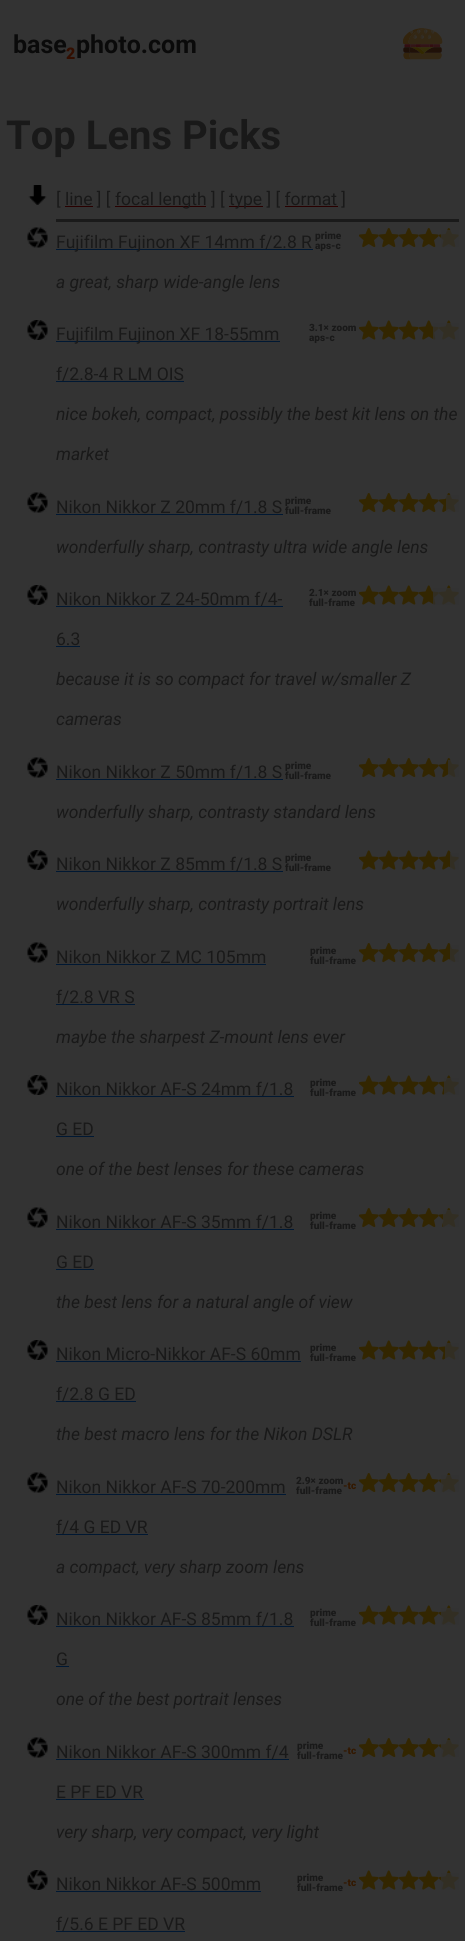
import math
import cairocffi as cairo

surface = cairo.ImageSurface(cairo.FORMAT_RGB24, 465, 1941)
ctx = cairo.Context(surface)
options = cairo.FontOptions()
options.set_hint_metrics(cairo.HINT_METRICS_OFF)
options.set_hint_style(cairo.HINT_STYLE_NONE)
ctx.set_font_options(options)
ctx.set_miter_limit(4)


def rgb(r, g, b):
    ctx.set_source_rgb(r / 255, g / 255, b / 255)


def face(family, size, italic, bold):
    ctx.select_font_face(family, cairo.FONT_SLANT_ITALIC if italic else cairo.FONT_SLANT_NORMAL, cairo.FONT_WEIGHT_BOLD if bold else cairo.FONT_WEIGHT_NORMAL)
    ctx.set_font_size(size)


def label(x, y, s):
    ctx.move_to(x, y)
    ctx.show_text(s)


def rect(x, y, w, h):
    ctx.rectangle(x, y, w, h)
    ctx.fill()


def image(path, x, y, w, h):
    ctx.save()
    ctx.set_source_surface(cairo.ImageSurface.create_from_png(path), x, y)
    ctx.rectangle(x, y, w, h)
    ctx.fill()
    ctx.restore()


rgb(51, 51, 51)
ctx.paint()
face('Roboto', 25, 0, 1)
rgb(10, 10, 10)
label(13, 53, 'base')
face('Roboto Black', 16, 0, 0)
rgb(51, 14, 0)
label(66, 59, '2')
face('Roboto', 25, 0, 1)
rgb(10, 10, 10)
label(76, 53, 'photo.com')
image('image0.png', 403, 28, 40, 32)
face('Roboto', 40, 0, 1)
rgb(25, 25, 25)
label(6, 149, 'Top Lens Picks')
rgb(26, 26, 26)
rect(56, 219, 403, 3)
image('image1.png', 28, 185, 19, 20)
face('Roboto', 17.5, 0, 0)
rgb(25, 25, 25)
label(56, 205, '[ line ] [')
rgb(41, 0, 0)
rect(115, 206, 91, 1)
rgb(25, 25, 25)
label(115, 205, 'focal length ] [')
rgb(41, 0, 0)
rect(229, 206, 34, 1)
rgb(25, 25, 25)
label(229, 205, 'type ] [ format ]')
rgb(41, 0, 0)
rect(65, 206, 28, 1)
rect(285, 206, 53, 1)
image('image2.png', 27, 227, 21, 21)
rgb(0, 24, 51)
rect(56, 249, 257, 1)
rgb(25, 25, 25)
label(56, 248, 'Fujifilm Fujinon XF 14mm f/2.8 R')
face('Roboto Black', 10, 0, 0)
label(315, 239, 'prime')
label(315, 249, 'aps-c')
image('image3.png', 359, 228, 20, 20)
image('image3.png', 379, 228, 20, 20)
image('image3.png', 399, 228, 20, 20)
image('image3.png', 419, 228, 20, 20)
image('image3.png', 439, 228, 20, 20)
ctx.set_source_rgba(0.2, 0.2, 0.2, 0.7)
rect(441, 230, 18, 17)
face('Roboto', 17.5, 1, 0)
rgb(25, 25, 25)
label(56, 288, 'a great, sharp wide-angle lens')
image('image4.png', 27, 320, 21, 20)
rgb(0, 24, 51)
rect(56, 341, 224, 1)
face('Roboto', 17.5, 0, 0)
rgb(25, 25, 25)
label(56, 340, 'Fujifilm Fujinon XF 18-55mm')
rgb(0, 24, 51)
rect(56, 381, 128, 1)
rgb(25, 25, 25)
label(56, 380, 'f/2.8-4 R LM OIS')
face('Roboto Black', 10, 0, 0)
label(309, 331, '3.1× zoom')
label(309, 341, 'aps-c')
image('image5.png', 359, 320, 20, 20)
image('image5.png', 379, 320, 20, 20)
image('image5.png', 399, 320, 20, 20)
image('image5.png', 419, 320, 20, 20)
image('image5.png', 439, 320, 20, 20)
ctx.set_source_rgba(0.2, 0.2, 0.2, 0.7)
rect(433, 323, 26, 17)
face('Roboto', 17.5, 1, 0)
rgb(25, 25, 25)
label(56, 420, 'nice bokeh, compact, possibly the best kit lens on the')
label(56, 460, 'market')
image('image2.png', 27, 492, 21, 21)
rgb(0, 24, 51)
rect(56, 514, 227, 1)
face('Roboto', 17.5, 0, 0)
rgb(25, 25, 25)
label(56, 513, 'Nikon Nikkor Z 20mm f/1.8 S')
face('Roboto Black', 10, 0, 0)
label(285, 504, 'prime')
label(285, 514, 'full-frame')
image('image3.png', 359, 493, 20, 20)
image('image3.png', 379, 493, 20, 20)
image('image3.png', 399, 493, 20, 20)
image('image3.png', 419, 493, 20, 20)
image('image3.png', 439, 493, 20, 20)
ctx.set_source_rgba(0.2, 0.2, 0.2, 0.7)
rect(446, 495, 13, 17)
face('Roboto', 17.5, 1, 0)
rgb(25, 25, 25)
label(56, 553, 'wonderfully sharp, contrasty ultra wide angle lens')
image('image6.png', 27, 585, 21, 20)
rgb(0, 24, 51)
rect(56, 606, 227, 1)
face('Roboto', 17.5, 0, 0)
rgb(25, 25, 25)
label(56, 605, 'Nikon Nikkor Z 24-50mm f/4-')
label(56, 645, '6.3')
rgb(0, 24, 51)
rect(56, 646, 24, 1)
face('Roboto Black', 10, 0, 0)
rgb(25, 25, 25)
label(309, 596, '2.1× zoom')
label(309, 606, 'full-frame')
image('image5.png', 359, 585, 20, 20)
image('image5.png', 379, 585, 20, 20)
image('image5.png', 399, 585, 20, 20)
image('image5.png', 419, 585, 20, 20)
image('image5.png', 439, 585, 20, 20)
ctx.set_source_rgba(0.2, 0.2, 0.2, 0.7)
rect(433, 588, 26, 17)
face('Roboto', 17.5, 1, 0)
rgb(25, 25, 25)
label(56, 685, 'because it is so compact for travel w/smaller Z')
label(56, 725, 'cameras')
image('image2.png', 27, 757, 21, 21)
rgb(0, 24, 51)
rect(56, 779, 227, 1)
face('Roboto', 17.5, 0, 0)
rgb(25, 25, 25)
label(56, 778, 'Nikon Nikkor Z 50mm f/1.8 S')
face('Roboto Black', 10, 0, 0)
label(285, 769, 'prime')
label(285, 779, 'full-frame')
image('image3.png', 359, 758, 20, 20)
image('image3.png', 379, 758, 20, 20)
image('image3.png', 399, 758, 20, 20)
image('image3.png', 419, 758, 20, 20)
image('image3.png', 439, 758, 20, 20)
ctx.set_source_rgba(0.2, 0.2, 0.2, 0.7)
rect(448, 760, 11, 17)
face('Roboto', 17.5, 1, 0)
rgb(25, 25, 25)
label(56, 818, 'wonderfully sharp, contrasty standard lens')
image('image4.png', 27, 850, 21, 20)
rgb(0, 24, 51)
rect(56, 871, 227, 1)
face('Roboto', 17.5, 0, 0)
rgb(25, 25, 25)
label(56, 870, 'Nikon Nikkor Z 85mm f/1.8 S')
face('Roboto Black', 10, 0, 0)
label(285, 861, 'prime')
label(285, 871, 'full-frame')
image('image5.png', 359, 850, 20, 20)
image('image5.png', 379, 850, 20, 20)
image('image5.png', 399, 850, 20, 20)
image('image5.png', 419, 850, 20, 20)
image('image5.png', 439, 850, 20, 20)
ctx.set_source_rgba(0.2, 0.2, 0.2, 0.7)
rect(450, 853, 9, 17)
face('Roboto', 17.5, 1, 0)
rgb(25, 25, 25)
label(56, 910, 'wonderfully sharp, contrasty portrait lens')
image('image2.png', 27, 942, 21, 21)
face('Roboto', 17.5, 0, 0)
label(56, 963, 'Nikon Nikkor Z MC 105mm')
rgb(0, 24, 51)
rect(56, 964, 210, 1)
rect(56, 1004, 79, 1)
rgb(25, 25, 25)
label(56, 1003, 'f/2.8 VR S')
face('Roboto Black', 10, 0, 0)
label(310, 954, 'prime')
label(310, 964, 'full-frame')
image('image3.png', 359, 943, 20, 20)
image('image3.png', 379, 943, 20, 20)
image('image3.png', 399, 943, 20, 20)
image('image3.png', 419, 943, 20, 20)
image('image3.png', 439, 943, 20, 20)
ctx.set_source_rgba(0.2, 0.2, 0.2, 0.7)
rect(450, 945, 9, 17)
face('Roboto', 17.5, 1, 0)
rgb(25, 25, 25)
label(56, 1043, 'maybe the sharpest Z-mount lens ever')
image('image4.png', 27, 1075, 21, 20)
rgb(0, 24, 51)
rect(56, 1096, 238, 1)
face('Roboto', 17.5, 0, 0)
rgb(25, 25, 25)
label(56, 1095, 'Nikon Nikkor AF-S 24mm f/1.8')
label(56, 1135, 'G ED')
rgb(0, 24, 51)
rect(56, 1136, 38, 1)
face('Roboto Black', 10, 0, 0)
rgb(25, 25, 25)
label(310, 1086, 'prime')
label(310, 1096, 'full-frame')
image('image5.png', 359, 1075, 20, 20)
image('image5.png', 379, 1075, 20, 20)
image('image5.png', 399, 1075, 20, 20)
image('image5.png', 419, 1075, 20, 20)
image('image5.png', 439, 1075, 20, 20)
ctx.set_source_rgba(0.2, 0.2, 0.2, 0.7)
rect(444, 1078, 15, 17)
face('Roboto', 17.5, 1, 0)
rgb(25, 25, 25)
label(56, 1175, 'one of the best lenses for these cameras')
image('image2.png', 27, 1207, 21, 21)
rgb(0, 24, 51)
rect(56, 1229, 238, 1)
face('Roboto', 17.5, 0, 0)
rgb(25, 25, 25)
label(56, 1228, 'Nikon Nikkor AF-S 35mm f/1.8')
label(56, 1268, 'G ED')
rgb(0, 24, 51)
rect(56, 1269, 38, 1)
face('Roboto Black', 10, 0, 0)
rgb(25, 25, 25)
label(310, 1219, 'prime')
label(310, 1229, 'full-frame')
image('image3.png', 359, 1208, 20, 20)
image('image3.png', 379, 1208, 20, 20)
image('image3.png', 399, 1208, 20, 20)
image('image3.png', 419, 1208, 20, 20)
image('image3.png', 439, 1208, 20, 20)
ctx.set_source_rgba(0.2, 0.2, 0.2, 0.7)
rect(443, 1210, 16, 17)
face('Roboto', 17.5, 1, 0)
rgb(25, 25, 25)
label(56, 1308, 'the best lens for a natural angle of view')
image('image4.png', 27, 1340, 21, 20)
face('Roboto', 17.5, 0, 0)
label(56, 1360, 'Nikon Micro-Nikkor AF-S 60mm')
rgb(0, 24, 51)
rect(56, 1361, 245, 1)
rect(56, 1401, 80, 1)
rgb(25, 25, 25)
label(56, 1400, 'f/2.8 G ED')
face('Roboto Black', 10, 0, 0)
label(310, 1351, 'prime')
label(310, 1361, 'full-frame')
image('image5.png', 359, 1340, 20, 20)
image('image5.png', 379, 1340, 20, 20)
image('image5.png', 399, 1340, 20, 20)
image('image5.png', 419, 1340, 20, 20)
image('image5.png', 439, 1340, 20, 20)
ctx.set_source_rgba(0.2, 0.2, 0.2, 0.7)
rect(445, 1343, 14, 17)
face('Roboto', 17.5, 1, 0)
rgb(25, 25, 25)
label(56, 1440, 'the best macro lens for the Nikon DSLR')
image('image2.png', 27, 1472, 21, 21)
face('Roboto', 17.5, 0, 0)
label(56, 1493, 'Nikon Nikkor AF-S 70-200mm')
rgb(0, 24, 51)
rect(56, 1494, 230, 1)
rect(56, 1534, 92, 1)
rgb(25, 25, 25)
label(56, 1533, 'f/4 G ED VR')
face('Roboto Black', 10, 0, 0)
label(296, 1484, '2.9× zoom')
rgb(51, 24, 0)
label(343, 1489, '-tc')
rgb(25, 25, 25)
label(296, 1494, 'full-frame')
image('image3.png', 359, 1473, 20, 20)
image('image3.png', 379, 1473, 20, 20)
image('image3.png', 399, 1473, 20, 20)
image('image3.png', 419, 1473, 20, 20)
image('image3.png', 439, 1473, 20, 20)
ctx.set_source_rgba(0.2, 0.2, 0.2, 0.7)
rect(441, 1475, 18, 17)
face('Roboto', 17.5, 1, 0)
rgb(25, 25, 25)
label(56, 1573, 'a compact, very sharp zoom lens')
image('image4.png', 27, 1605, 21, 20)
rgb(0, 24, 51)
rect(56, 1626, 238, 1)
face('Roboto', 17.5, 0, 0)
rgb(25, 25, 25)
label(56, 1625, 'Nikon Nikkor AF-S 85mm f/1.8')
label(56, 1665, 'G')
rgb(0, 24, 51)
rect(56, 1666, 13, 1)
face('Roboto Black', 10, 0, 0)
rgb(25, 25, 25)
label(310, 1616, 'prime')
label(310, 1626, 'full-frame')
image('image5.png', 359, 1605, 20, 20)
image('image5.png', 379, 1605, 20, 20)
image('image5.png', 399, 1605, 20, 20)
image('image5.png', 419, 1605, 20, 20)
image('image5.png', 439, 1605, 20, 20)
ctx.set_source_rgba(0.2, 0.2, 0.2, 0.7)
rect(441, 1608, 18, 17)
face('Roboto', 17.5, 1, 0)
rgb(25, 25, 25)
label(56, 1705, 'one of the best portrait lenses')
image('image2.png', 27, 1737, 21, 21)
rgb(0, 24, 51)
rect(56, 1759, 233, 1)
face('Roboto', 17.5, 0, 0)
rgb(25, 25, 25)
label(56, 1758, 'Nikon Nikkor AF-S 300mm f/4')
label(56, 1798, 'E PF ED VR')
rgb(0, 24, 51)
rect(56, 1799, 88, 1)
face('Roboto Black', 10, 0, 0)
rgb(25, 25, 25)
label(297, 1749, 'prime')
rgb(51, 24, 0)
label(343, 1754, '-tc')
rgb(25, 25, 25)
label(297, 1759, 'full-frame')
image('image3.png', 359, 1738, 20, 20)
image('image3.png', 379, 1738, 20, 20)
image('image3.png', 399, 1738, 20, 20)
image('image3.png', 419, 1738, 20, 20)
image('image3.png', 439, 1738, 20, 20)
ctx.set_source_rgba(0.2, 0.2, 0.2, 0.7)
rect(441, 1740, 18, 17)
face('Roboto', 17.5, 1, 0)
rgb(25, 25, 25)
label(56, 1838, 'very sharp, very compact, very light')
image('image4.png', 27, 1870, 21, 20)
face('Roboto', 17.5, 0, 0)
label(56, 1890, 'Nikon Nikkor AF-S 500mm')
rgb(0, 24, 51)
rect(56, 1891, 205, 1)
rect(56, 1931, 129, 1)
rgb(25, 25, 25)
label(56, 1930, 'f/5.6 E PF ED VR')
face('Roboto Black', 10, 0, 0)
label(297, 1881, 'prime')
rgb(51, 24, 0)
label(343, 1886, '-tc')
rgb(25, 25, 25)
label(297, 1891, 'full-frame')
image('image5.png', 359, 1870, 20, 20)
image('image5.png', 379, 1870, 20, 20)
image('image5.png', 399, 1870, 20, 20)
image('image5.png', 419, 1870, 20, 20)
image('image5.png', 439, 1870, 20, 20)
ctx.set_source_rgba(0.2, 0.2, 0.2, 0.7)
rect(441, 1873, 18, 17)
surface.write_to_png('render.png')
